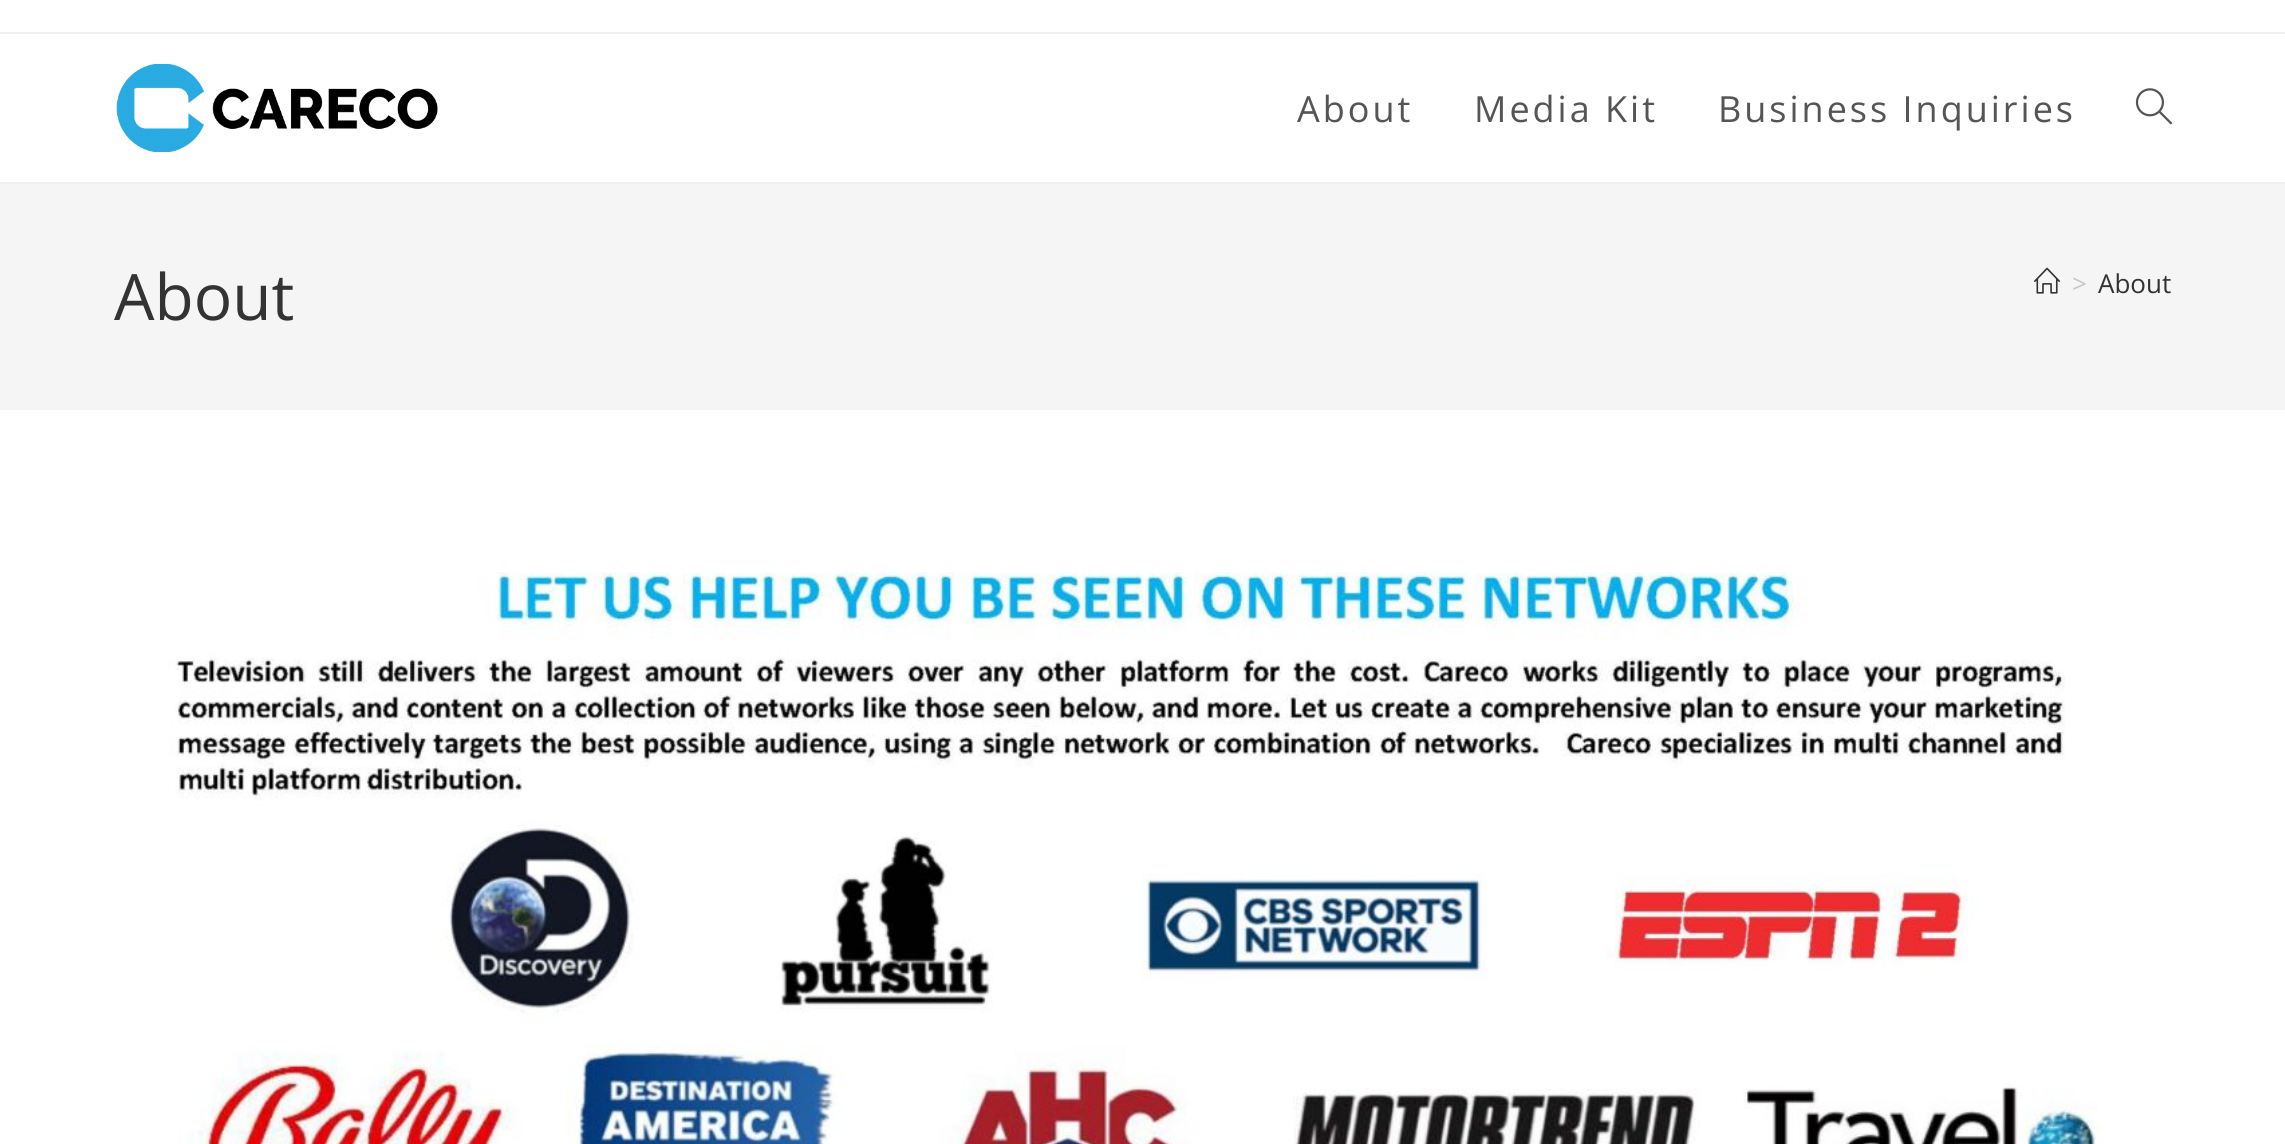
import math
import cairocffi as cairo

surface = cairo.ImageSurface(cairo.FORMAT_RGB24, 2285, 1144)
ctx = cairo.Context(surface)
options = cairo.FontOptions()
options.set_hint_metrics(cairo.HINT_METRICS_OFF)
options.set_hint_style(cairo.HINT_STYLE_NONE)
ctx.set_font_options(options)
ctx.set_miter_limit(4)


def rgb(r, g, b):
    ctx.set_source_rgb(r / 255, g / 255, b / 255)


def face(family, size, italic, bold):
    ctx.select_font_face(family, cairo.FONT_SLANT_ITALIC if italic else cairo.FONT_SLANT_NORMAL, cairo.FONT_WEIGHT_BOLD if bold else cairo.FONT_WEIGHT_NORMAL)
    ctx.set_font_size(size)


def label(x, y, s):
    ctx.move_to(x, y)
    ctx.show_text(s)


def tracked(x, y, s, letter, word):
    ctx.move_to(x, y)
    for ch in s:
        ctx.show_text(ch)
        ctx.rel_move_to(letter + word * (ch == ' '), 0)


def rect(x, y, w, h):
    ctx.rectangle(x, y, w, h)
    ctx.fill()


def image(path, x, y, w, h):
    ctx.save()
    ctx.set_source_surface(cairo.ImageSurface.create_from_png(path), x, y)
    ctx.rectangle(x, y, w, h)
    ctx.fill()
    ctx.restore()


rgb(255, 255, 255)
ctx.paint()
rgb(241, 241, 241)
rect(0, 32, 2285, 2)
rect(0, 182, 2285, 2)
image('image0.png', 116, 64, 322, 88)
face('Open Sans', 36, 0, 0)
rgb(85, 85, 85)
tracked(1297, 122, 'About', 3, 0)
tracked(1474, 122, 'Media Kit', 3, 0)
tracked(1718, 122, 'Business Inquiries', 3, 0)
image('image1.png', 2135, 88, 37, 37)
rgb(245, 245, 245)
rect(0, 184, 2285, 226)
face('Open Sans', 64, 0, 0)
rgb(51, 51, 51)
label(114, 320, 'About')
image('image2.png', 2034, 267, 26, 27)
face('Open Sans', 26, 0, 0)
rgb(198, 198, 198)
label(2072, 293, '>')
rgb(51, 51, 51)
label(2098, 293, 'About')
image('image3.png', 168, 572, 1934, 572)
surface.write_to_png('render.png')
